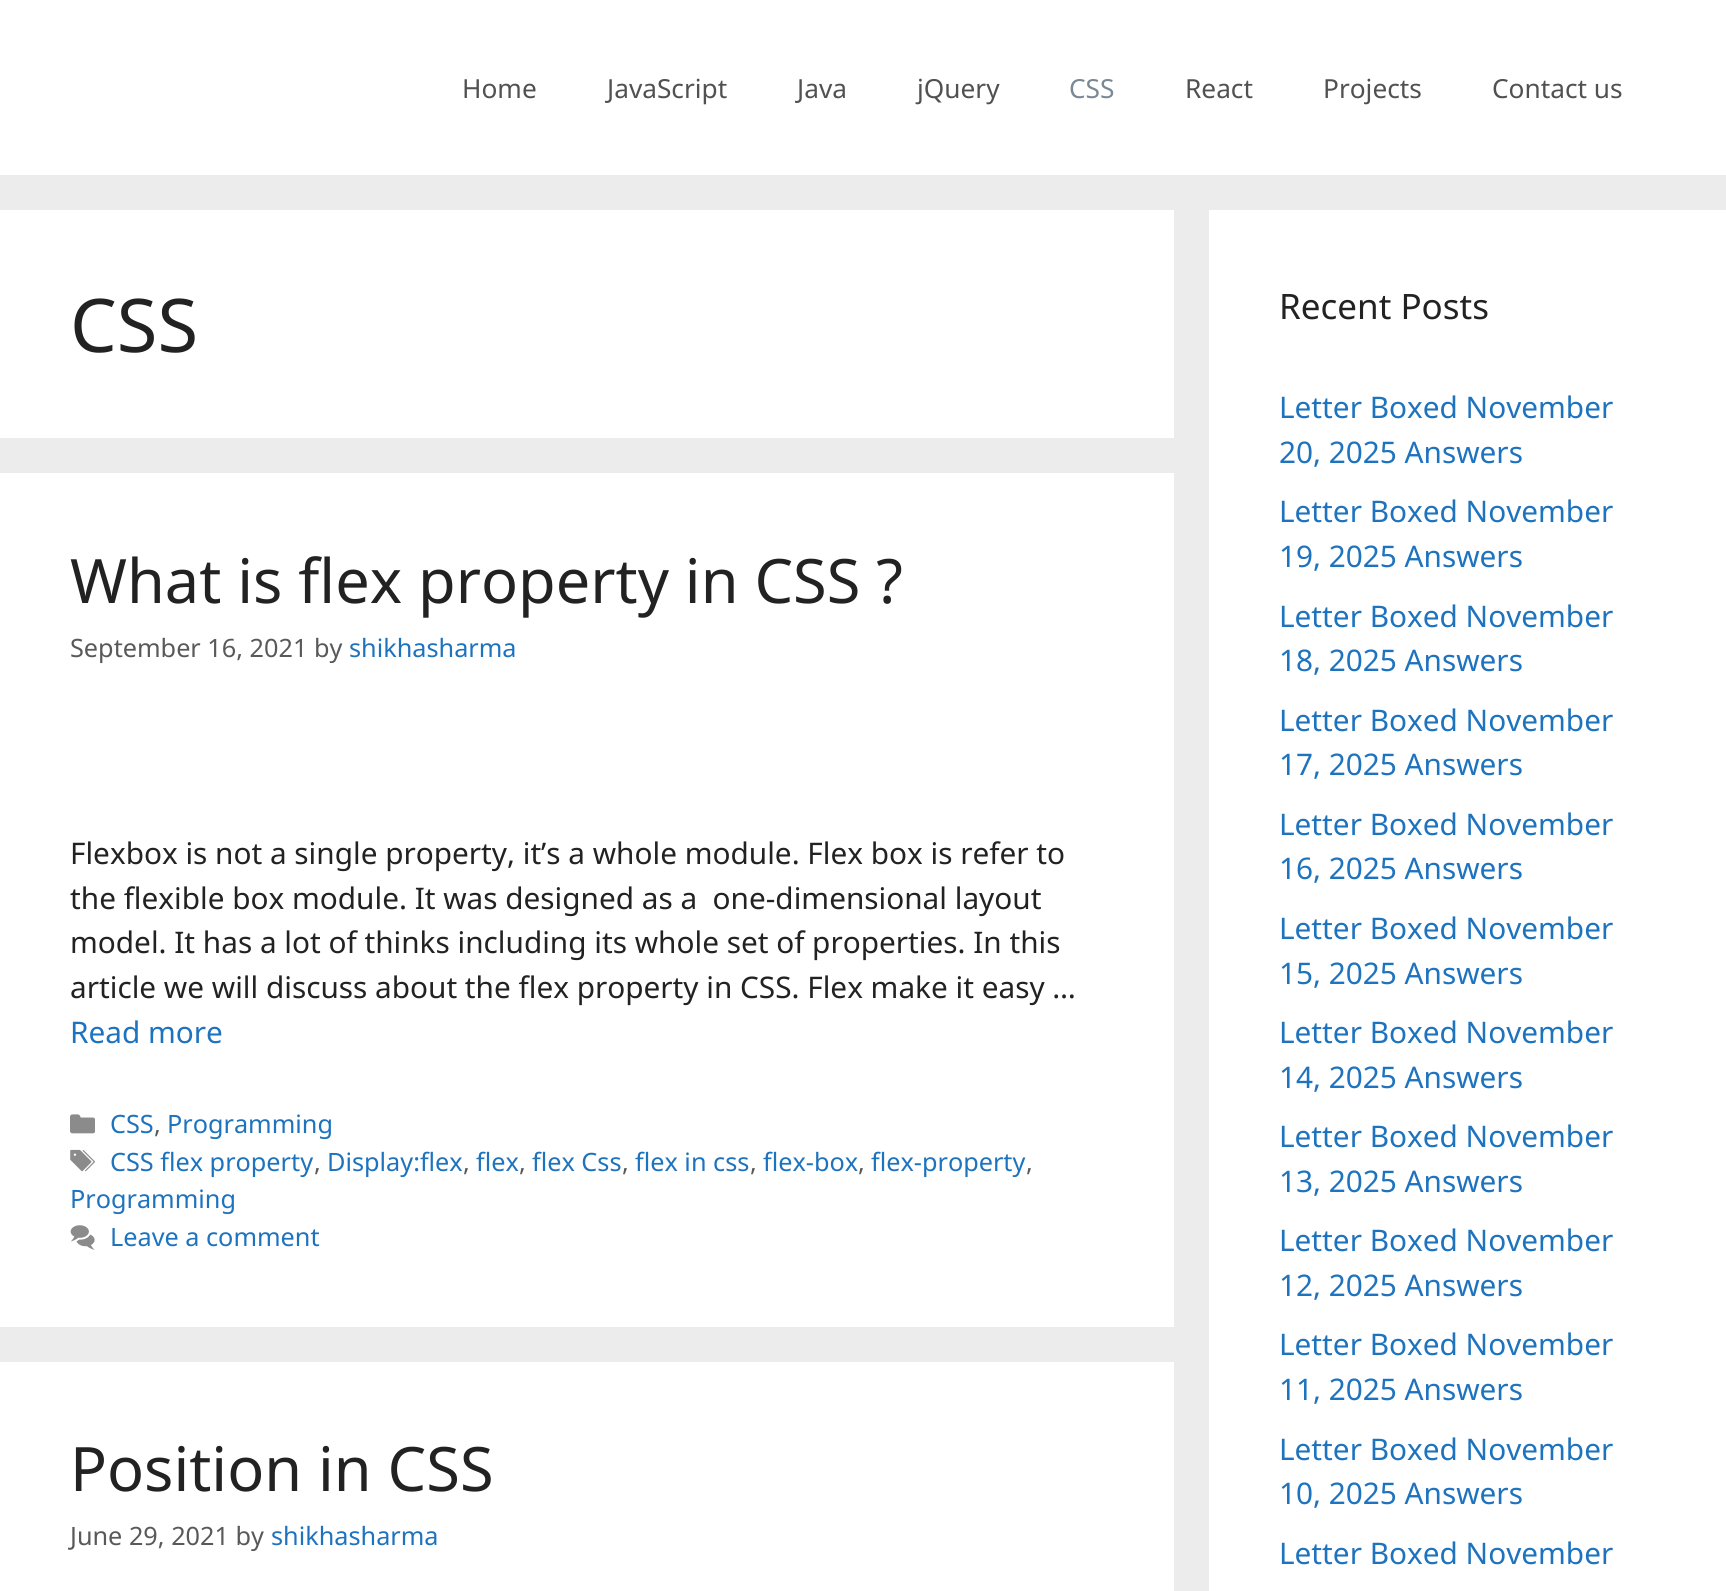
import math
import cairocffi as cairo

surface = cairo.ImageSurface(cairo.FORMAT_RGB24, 1726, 1591)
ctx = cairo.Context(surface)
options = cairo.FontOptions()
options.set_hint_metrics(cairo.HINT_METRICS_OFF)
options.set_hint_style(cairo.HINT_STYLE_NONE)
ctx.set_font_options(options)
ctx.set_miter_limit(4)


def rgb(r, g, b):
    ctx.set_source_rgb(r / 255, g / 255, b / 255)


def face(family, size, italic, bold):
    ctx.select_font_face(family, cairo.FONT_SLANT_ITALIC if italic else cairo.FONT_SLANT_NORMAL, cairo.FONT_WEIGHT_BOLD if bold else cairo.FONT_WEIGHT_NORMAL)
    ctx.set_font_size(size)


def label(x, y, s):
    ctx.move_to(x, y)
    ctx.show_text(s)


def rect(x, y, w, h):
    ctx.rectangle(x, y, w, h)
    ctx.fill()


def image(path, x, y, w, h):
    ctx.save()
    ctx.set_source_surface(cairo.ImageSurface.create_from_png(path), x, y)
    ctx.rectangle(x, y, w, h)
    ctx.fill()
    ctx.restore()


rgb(236, 236, 236)
ctx.paint()
rgb(255, 255, 255)
rect(0, 0, 1726, 175)
face('Noto Sans', 26.25, 0, 0)
rgb(81, 81, 81)
label(462, 98, 'Home')
label(607, 98, 'JavaScript')
label(797, 98, 'Java')
label(917, 98, 'jQuery')
rgb(122, 136, 150)
label(1069, 98, 'CSS')
rgb(81, 81, 81)
label(1185, 98, 'React')
label(1323, 98, 'Projects')
label(1492, 98, 'Contact us')
rgb(255, 255, 255)
rect(0, 210, 1174, 228)
face('Noto Sans', 74, 0, 0)
rgb(34, 34, 34)
label(70, 352, 'CSS')
rgb(255, 255, 255)
rect(0, 473, 1174, 854)
face('Noto Sans', 61.25, 0, 0)
rgb(34, 34, 34)
label(70, 603, 'What is flex property in CSS ?')
face('Noto Sans', 25.25, 0, 0)
rgb(89, 89, 89)
label(70, 657, 'September 16, 2021 by')
rgb(30, 115, 190)
label(349, 657, 'shikhasharma')
face('Noto Sans', 29.75, 0, 0)
rgb(34, 34, 34)
label(70, 864, 'Flexbox is not a single property, it’s a whole module. Flex box is refer to')
label(70, 909, 'the flexible box module. It was designed as a  one-dimensional layout')
label(70, 953, 'model. It has a lot of thinks including its whole set of properties. In this')
label(70, 998, 'article we will discuss about the flex property in CSS. Flex make it easy …')
rgb(30, 115, 190)
label(70, 1043, 'Read more')
image('image0.png', 70, 1114, 25, 20)
face('Noto Sans', 25.25, 0, 0)
label(110, 1133, 'CSS')
rgb(89, 89, 89)
label(154, 1133, ',')
rgb(30, 115, 190)
label(167, 1133, 'Programming')
image('image1.png', 70, 1149, 25, 23)
label(110, 1171, 'CSS flex property')
rgb(89, 89, 89)
label(314, 1171, ',')
rgb(30, 115, 190)
label(327, 1171, 'Display:flex')
rgb(89, 89, 89)
label(463, 1171, ',')
rgb(30, 115, 190)
label(476, 1171, 'flex')
rgb(89, 89, 89)
label(519, 1171, ',')
rgb(30, 115, 190)
label(532, 1171, 'flex Css')
rgb(89, 89, 89)
label(622, 1171, ',')
rgb(30, 115, 190)
label(635, 1171, 'flex in css')
rgb(89, 89, 89)
label(750, 1171, ',')
rgb(30, 115, 190)
label(763, 1171, 'flex-box')
rgb(89, 89, 89)
label(858, 1171, ',')
rgb(30, 115, 190)
label(871, 1171, 'flex-property')
rgb(89, 89, 89)
label(1026, 1171, ',')
rgb(30, 115, 190)
label(70, 1208, 'Programming')
image('image2.png', 70, 1225, 25, 25)
label(110, 1246, 'Leave a comment')
rgb(255, 255, 255)
rect(0, 1362, 1174, 229)
face('Noto Sans', 61.25, 0, 0)
rgb(34, 34, 34)
label(70, 1491, 'Position in CSS')
face('Noto Sans', 25.25, 0, 0)
rgb(89, 89, 89)
label(70, 1545, 'June 29, 2021 by')
rgb(30, 115, 190)
label(271, 1545, 'shikhasharma')
rgb(255, 255, 255)
rect(1209, 210, 517, 1381)
face('Noto Sans', 35, 0, 0)
rgb(34, 34, 34)
label(1279, 319, 'Recent Posts')
face('Noto Sans', 29.75, 0, 0)
rgb(30, 115, 190)
label(1279, 418, 'Letter Boxed November')
label(1279, 463, '20, 2025 Answers')
label(1279, 522, 'Letter Boxed November')
label(1279, 567, '19, 2025 Answers')
label(1279, 627, 'Letter Boxed November')
label(1279, 671, '18, 2025 Answers')
label(1279, 731, 'Letter Boxed November')
label(1279, 775, '17, 2025 Answers')
label(1279, 835, 'Letter Boxed November')
label(1279, 879, '16, 2025 Answers')
label(1279, 939, 'Letter Boxed November')
label(1279, 984, '15, 2025 Answers')
label(1279, 1043, 'Letter Boxed November')
label(1279, 1088, '14, 2025 Answers')
label(1279, 1147, 'Letter Boxed November')
label(1279, 1192, '13, 2025 Answers')
label(1279, 1251, 'Letter Boxed November')
label(1279, 1296, '12, 2025 Answers')
label(1279, 1355, 'Letter Boxed November')
label(1279, 1400, '11, 2025 Answers')
label(1279, 1460, 'Letter Boxed November')
label(1279, 1504, '10, 2025 Answers')
label(1279, 1564, 'Letter Boxed November')
surface.write_to_png('render.png')
